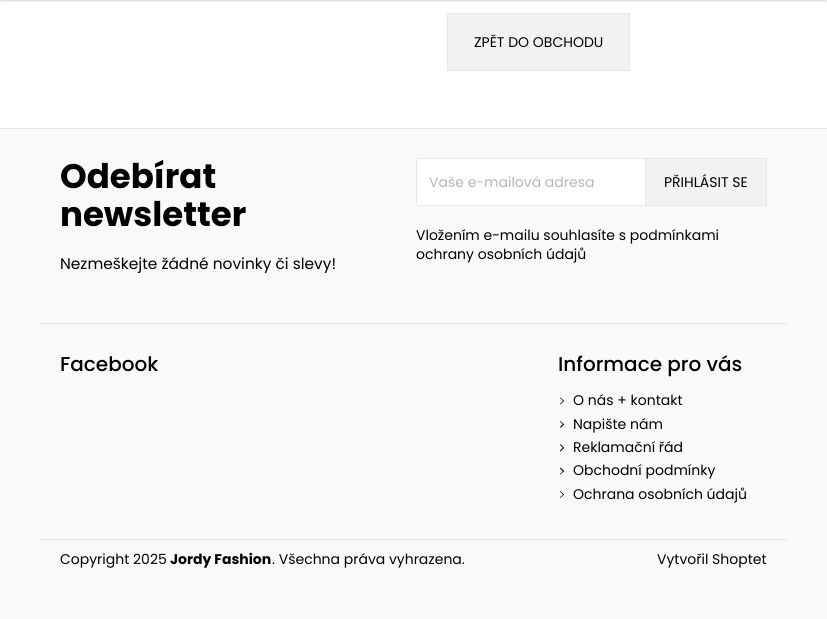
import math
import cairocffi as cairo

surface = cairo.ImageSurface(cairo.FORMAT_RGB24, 827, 619)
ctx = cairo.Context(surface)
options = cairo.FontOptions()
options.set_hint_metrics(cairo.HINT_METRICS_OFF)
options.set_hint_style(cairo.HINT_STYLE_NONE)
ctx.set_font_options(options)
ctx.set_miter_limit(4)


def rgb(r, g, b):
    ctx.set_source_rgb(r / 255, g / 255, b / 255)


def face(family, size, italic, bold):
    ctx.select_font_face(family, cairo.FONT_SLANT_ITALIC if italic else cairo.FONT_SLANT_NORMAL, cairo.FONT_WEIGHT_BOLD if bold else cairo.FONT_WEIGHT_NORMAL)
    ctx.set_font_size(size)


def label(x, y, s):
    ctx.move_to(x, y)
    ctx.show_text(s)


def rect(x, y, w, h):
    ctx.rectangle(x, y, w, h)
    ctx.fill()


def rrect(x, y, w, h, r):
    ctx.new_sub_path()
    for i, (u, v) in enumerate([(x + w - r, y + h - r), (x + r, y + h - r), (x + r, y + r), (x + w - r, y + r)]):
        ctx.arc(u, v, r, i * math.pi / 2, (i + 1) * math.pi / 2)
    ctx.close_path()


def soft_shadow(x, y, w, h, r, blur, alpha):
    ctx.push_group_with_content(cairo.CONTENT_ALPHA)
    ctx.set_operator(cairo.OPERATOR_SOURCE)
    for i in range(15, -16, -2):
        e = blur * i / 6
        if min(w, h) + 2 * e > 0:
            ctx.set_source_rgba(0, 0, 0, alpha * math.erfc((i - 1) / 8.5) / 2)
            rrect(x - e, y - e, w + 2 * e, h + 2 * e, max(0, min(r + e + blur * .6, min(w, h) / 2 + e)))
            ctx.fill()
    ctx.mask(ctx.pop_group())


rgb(255, 255, 255)
ctx.paint()
rgb(0, 0, 0)
soft_shadow(0, -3, 827, 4, 0, 1, 0.16)
rgb(242, 242, 242)
ctx.rectangle(447.5, 13.5, 182, 57)
ctx.fill_preserve()
rgb(230, 230, 230)
ctx.set_line_width(1)
ctx.stroke()
face('Poppins', 14, 0, 0)
rgb(0, 0, 0)
label(474, 47, 'ZPĚT DO OBCHODU')
rgb(249, 249, 249)
rect(0, 129, 827, 490)
rgb(230, 230, 230)
rect(0, 128, 827, 1)
rect(40, 323, 747, 1)
face('Poppins', 34, 0, 1)
rgb(0, 0, 0)
label(60, 188, 'Odebírat')
label(60, 226, 'newsletter')
face('Poppins', 15.4, 0, 0)
label(60, 269, 'Nezmeškejte žádné novinky či slevy!')
rgb(255, 255, 255)
rrect(416.5, 158.5, 350, 47, 2.5)
ctx.fill_preserve()
rgb(230, 230, 230)
ctx.stroke()
face('Poppins', 14, 0, 0)
rgb(182, 182, 182)
label(429, 187, 'Vaše e-mailová adresa')
rgb(242, 242, 242)
ctx.rectangle(645.5, 158.5, 121, 47)
ctx.fill_preserve()
rgb(230, 230, 230)
ctx.stroke()
rgb(0, 0, 0)
label(664, 187, 'PŘIHLÁSIT SE')
label(416, 240, 'Vložením e-mailu souhlasíte s podmínkami')
label(416, 259, 'ochrany osobních údajů')
face('Poppins Medium', 20, 0, 0)
label(60, 371, 'Facebook')
label(558, 371, 'Informace pro vás')
ctx.new_path()
ctx.move_to(560, 398)
ctx.line_to(560.5, 397.5)
ctx.line_to(564, 401)
ctx.line_to(563.5, 401.5)
ctx.close_path()
ctx.fill()
ctx.new_path()
ctx.move_to(560, 404)
ctx.line_to(563.5, 400.5)
ctx.line_to(564, 401)
ctx.line_to(560.5, 404.5)
ctx.close_path()
ctx.fill()
face('Poppins', 14, 0, 0)
label(573, 405, 'O nás + kontakt')
ctx.new_path()
ctx.move_to(560, 421.5)
ctx.line_to(560.5, 421)
ctx.line_to(564, 424.5)
ctx.line_to(563.5, 425)
ctx.close_path()
ctx.fill()
ctx.new_path()
ctx.move_to(560, 427)
ctx.line_to(563.5, 423.5)
ctx.line_to(564, 424.5)
ctx.line_to(560.5, 428)
ctx.close_path()
ctx.fill()
label(573, 429, 'Napište nám')
ctx.new_path()
ctx.move_to(560, 445)
ctx.line_to(560.5, 444)
ctx.line_to(564, 448)
ctx.line_to(563.5, 448.5)
ctx.close_path()
ctx.fill()
ctx.new_path()
ctx.move_to(560, 450.5)
ctx.line_to(563.5, 447)
ctx.line_to(564, 448)
ctx.line_to(560.5, 451.5)
ctx.close_path()
ctx.fill()
label(573, 452, 'Reklamační řád')
ctx.new_path()
ctx.move_to(560, 468.5)
ctx.line_to(560.5, 467.5)
ctx.line_to(564, 471)
ctx.line_to(563.5, 472)
ctx.close_path()
ctx.fill()
ctx.new_path()
ctx.move_to(560, 474)
ctx.line_to(563.5, 470.5)
ctx.line_to(564, 471)
ctx.line_to(560.5, 474.5)
ctx.close_path()
ctx.fill()
label(573, 475, 'Obchodní podmínky')
ctx.new_path()
ctx.move_to(560, 491.5)
ctx.line_to(560.5, 491)
ctx.line_to(564, 494.5)
ctx.line_to(563.5, 495)
ctx.close_path()
ctx.fill()
ctx.new_path()
ctx.move_to(560, 497.5)
ctx.line_to(563.5, 494)
ctx.line_to(564, 494.5)
ctx.line_to(560.5, 498)
ctx.close_path()
ctx.fill()
label(573, 499, 'Ochrana osobních údajů')
rgb(230, 230, 230)
rect(40, 539, 747, 1)
rgb(0, 0, 0)
label(60, 564, 'Copyright 2025')
face('Poppins', 14, 0, 1)
label(170, 564, 'Jordy Fashion')
face('Poppins', 14, 0, 0)
label(272, 564, '. Všechna práva vyhrazena.')
label(657, 564, 'Vytvořil Shoptet')
surface.write_to_png('render.png')
